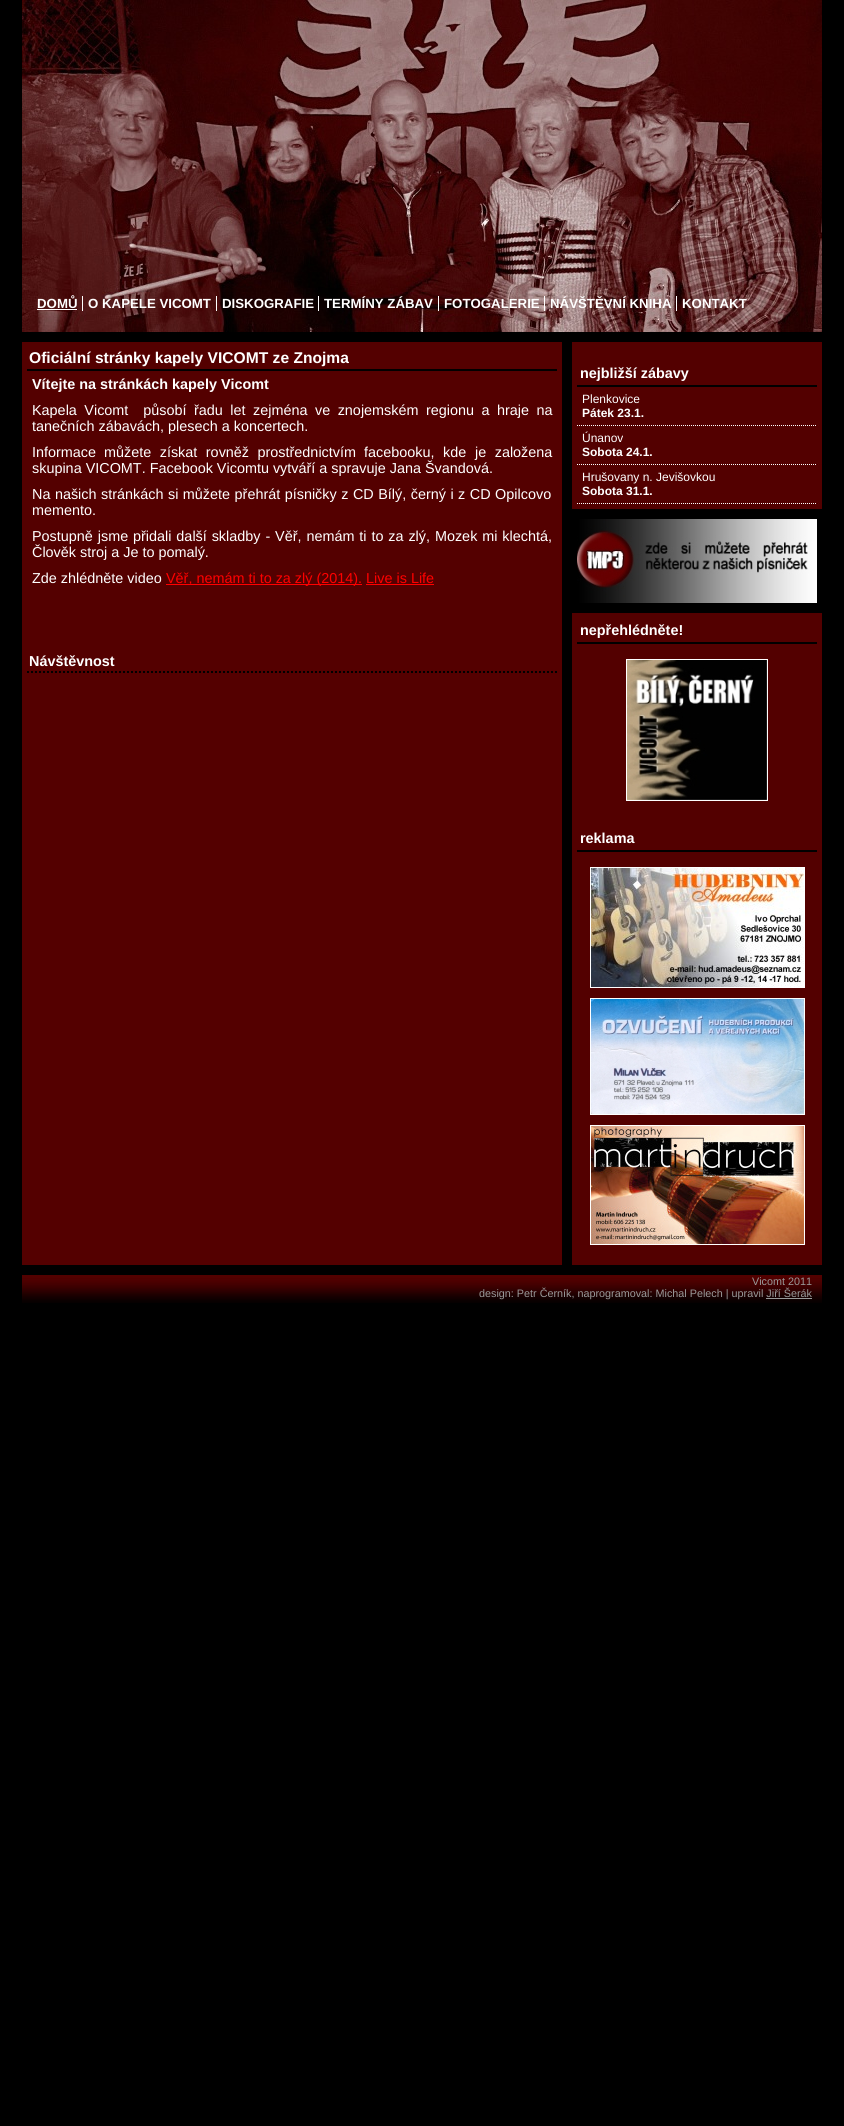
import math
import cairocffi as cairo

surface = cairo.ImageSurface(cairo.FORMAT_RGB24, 844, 2126)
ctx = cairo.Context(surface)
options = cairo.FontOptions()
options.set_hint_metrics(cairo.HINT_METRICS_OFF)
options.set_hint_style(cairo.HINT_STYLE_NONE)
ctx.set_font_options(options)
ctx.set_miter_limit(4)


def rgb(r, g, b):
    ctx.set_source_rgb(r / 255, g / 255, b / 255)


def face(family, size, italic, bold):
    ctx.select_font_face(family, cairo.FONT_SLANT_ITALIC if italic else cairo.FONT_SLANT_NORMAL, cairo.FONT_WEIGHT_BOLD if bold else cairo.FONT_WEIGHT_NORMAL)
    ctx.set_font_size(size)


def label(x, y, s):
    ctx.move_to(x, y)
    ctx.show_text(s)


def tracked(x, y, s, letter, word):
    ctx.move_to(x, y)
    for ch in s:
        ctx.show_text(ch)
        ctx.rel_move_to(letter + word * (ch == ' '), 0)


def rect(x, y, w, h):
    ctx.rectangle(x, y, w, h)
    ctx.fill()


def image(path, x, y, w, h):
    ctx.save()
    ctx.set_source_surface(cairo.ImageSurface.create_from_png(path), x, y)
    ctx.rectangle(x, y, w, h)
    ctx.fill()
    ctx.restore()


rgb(0, 0, 0)
ctx.paint()
image('image0.png', 22, 0, 800, 292)
image('image1.png', 22, 292, 800, 40)
rgb(255, 255, 255)
rect(82, 296, 1, 15)
face('Liberation Sans', 13.25, 0, 1)
label(37, 308, 'DOMŮ')
rect(37, 309, 40, 1)
rect(216, 296, 1, 15)
label(88, 308, 'O KAPELE VICOMT')
rect(318, 296, 1, 15)
label(222, 308, 'DISKOGRAFIE')
rect(438, 296, 1, 15)
label(324, 308, 'TERMÍNY ZÁBAV')
rect(544, 296, 1, 15)
label(444, 308, 'FOTOGALERIE')
rect(676, 296, 1, 15)
label(550, 308, 'NÁVŠTĚVNÍ KNIHA')
label(682, 308, 'KONTAKT')
rgb(84, 0, 0)
rect(22, 342, 540, 923)
rgb(0, 0, 0)
rect(27, 369, 530, 2)
face('Liberation Sans', 15.6, 0, 1)
rgb(255, 255, 255)
label(29, 363, 'Oficiální stránky kapely VICOMT ze Znojma')
face('Liberation Sans', 14.4, 0, 1)
label(32, 389, 'Vítejte na stránkách kapely Vicomt')
face('Liberation Sans', 14.4, 0, 0)
tracked(32, 415, 'Kapela Vicomt  působí', 0, 3.5)
tracked(194, 415, 'řadu let zejména ve znojemském regionu a hraje na', 0, 3.5)
label(32, 431, 'tanečních zábavách, plesech a koncertech.')
label(32, 457, 'Informace')
tracked(104, 457, 'můžete získat rovněž prostřednictvím', 0, 4.5)
tracked(364, 457, 'facebooku, kde', 0, 4.5)
tracked(475, 457, 'je založena', 0, 4.5)
label(32, 473, 'skupina VICOMT. Facebook Vicomtu vytváří a spravuje Jana Švandová.')
tracked(32, 499, 'Na našich stránkách si můžete přehrát písničky z CD Bílý, černý i z CD Opilcovo', 0, 0.5)
label(32, 515, 'memento.')
tracked(32, 541, 'Postupně jsme přidali další skladby - Věř, nemám ti to za zlý, Mozek mi klechtá,', 0, 0.9)
label(32, 557, 'Člověk stroj a Je to pomalý.')
label(32, 583, 'Zde zhlédněte video')
rgb(255, 0, 0)
rect(166, 584, 196, 1)
label(166, 583, 'Věř, nemám ti to za zlý (2014). Live is Life')
rect(366, 584, 68, 1)
ctx.new_path()
ctx.move_to(27, 672)
ctx.line_to(557, 672)
rgb(0, 0, 0)
ctx.set_dash([2, 2])
ctx.stroke()
face('Liberation Sans', 14.4, 0, 1)
rgb(255, 255, 255)
label(29, 666, 'Návštěvnost')
rgb(83, 0, 0)
rect(572, 342, 250, 167)
rgb(0, 0, 0)
rect(577, 385, 240, 2)
rgb(255, 255, 255)
label(580, 378, 'nejbližší zábavy')
ctx.new_path()
ctx.move_to(577, 425.5)
ctx.line_to(817, 425.5)
ctx.set_line_width(1)
ctx.set_dash([1, 1])
ctx.stroke()
face('Liberation Sans', 12, 0, 0)
label(582, 403, 'Plenkovice')
face('Liberation Sans', 12, 0, 1)
label(582, 417, 'Pátek 23.1.')
ctx.new_path()
ctx.move_to(577, 464.5)
ctx.line_to(817, 464.5)
ctx.stroke()
face('Liberation Sans', 12, 0, 0)
label(582, 442, 'Únanov')
face('Liberation Sans', 12, 0, 1)
label(582, 456, 'Sobota 24.1.')
ctx.new_path()
ctx.move_to(577, 503.5)
ctx.line_to(817, 503.5)
ctx.stroke()
face('Liberation Sans', 12, 0, 0)
label(582, 481, 'Hrušovany n. Jevišovkou')
face('Liberation Sans', 12, 0, 1)
label(582, 495, 'Sobota 31.1.')
image('image2.png', 577, 519, 240, 84)
rgb(83, 0, 0)
rect(572, 613, 250, 652)
rgb(0, 0, 0)
rect(577, 642, 240, 2)
face('Liberation Sans', 14.4, 0, 1)
rgb(255, 255, 255)
label(580, 635, 'nepřehlédněte!')
ctx.rectangle(626.5, 659.5, 141, 141)
ctx.set_dash([])
ctx.stroke()
image('image3.png', 627, 660, 140, 140)
rgb(0, 0, 0)
rect(577, 850, 240, 2)
rgb(255, 255, 255)
label(580, 843, 'reklama')
ctx.rectangle(590.5, 867.5, 214, 120)
ctx.stroke()
image('image4.png', 591, 868, 213, 119)
ctx.rectangle(590.5, 998.5, 214, 116)
ctx.stroke()
image('image5.png', 591, 999, 213, 115)
ctx.rectangle(590.5, 1125.5, 214, 119)
ctx.stroke()
image('image6.png', 591, 1126, 213, 118)
image('image7.png', 22, 1275, 800, 28)
face('Liberation Sans', 10.8, 0, 0)
rgb(153, 153, 153)
label(752, 1285, 'Vicomt 2011')
label(479, 1297, 'design: Petr Černík, naprogramoval: Michal Pelech | upravil Jiří Šerák')
rect(766, 1298, 46, 1)
surface.write_to_png('render.png')
